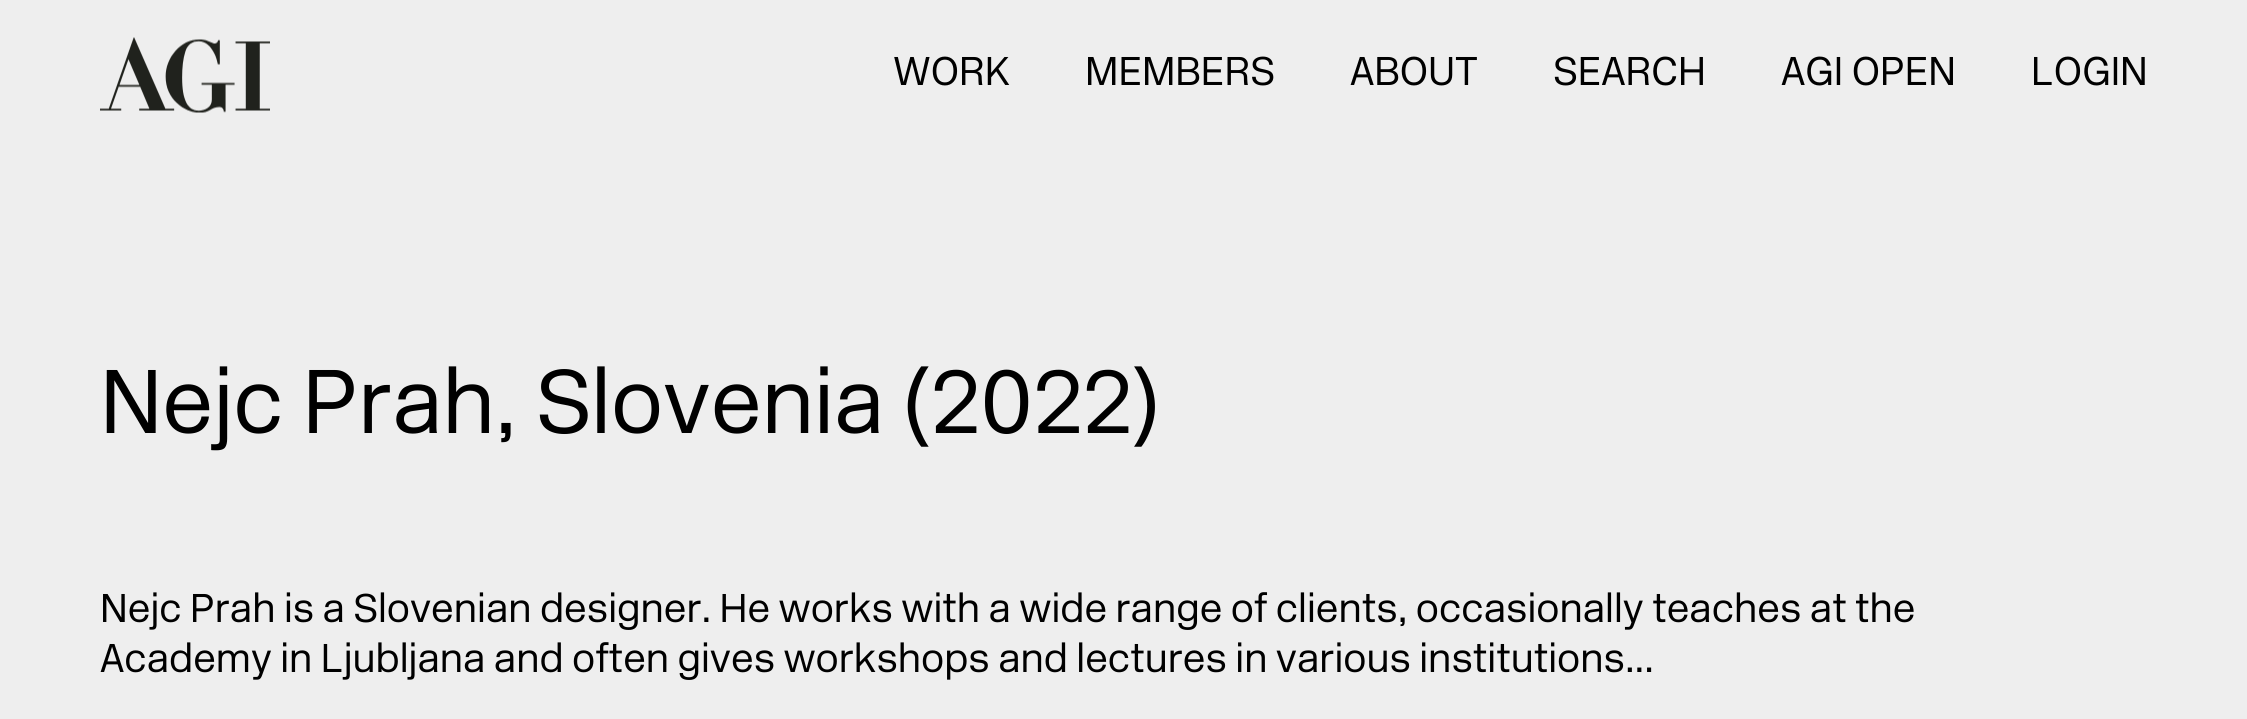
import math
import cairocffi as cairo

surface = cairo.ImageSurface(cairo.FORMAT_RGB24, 2247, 719)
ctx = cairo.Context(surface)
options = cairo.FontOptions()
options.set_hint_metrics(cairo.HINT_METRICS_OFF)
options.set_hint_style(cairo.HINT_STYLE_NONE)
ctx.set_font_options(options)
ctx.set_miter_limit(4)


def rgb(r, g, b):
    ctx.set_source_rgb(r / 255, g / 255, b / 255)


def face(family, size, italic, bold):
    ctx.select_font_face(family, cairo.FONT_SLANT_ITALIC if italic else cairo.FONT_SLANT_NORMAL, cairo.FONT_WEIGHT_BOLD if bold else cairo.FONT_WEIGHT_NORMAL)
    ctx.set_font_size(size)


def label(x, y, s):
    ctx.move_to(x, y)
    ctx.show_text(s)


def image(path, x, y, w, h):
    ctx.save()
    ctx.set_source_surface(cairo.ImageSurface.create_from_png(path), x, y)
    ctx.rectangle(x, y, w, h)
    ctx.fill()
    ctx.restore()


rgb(238, 238, 238)
ctx.paint()
image('image0.png', 100, 37, 170, 76)
face('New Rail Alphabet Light', 40, 0, 0)
rgb(0, 0, 0)
label(893, 85, 'WORK')
label(1085, 85, 'MEMBERS')
label(1350, 85, 'ABOUT')
label(1553, 85, 'SEARCH')
label(1781, 85, 'AGI OPEN')
label(2031, 85, 'LOGIN')
face('New Rail Alphabet Light', 90, 0, 0)
label(100, 433, 'Nejc Prah, Slovenia (2022)')
face('New Rail Alphabet Light', 40, 0, 0)
label(100, 622, 'Nejc Prah is a Slovenian designer. He works with a wide range of clients, occasionally teaches at the')
label(100, 672, 'Academy in Ljubljana and often gives workshops and lectures in various institutions...')
surface.write_to_png('render.png')
